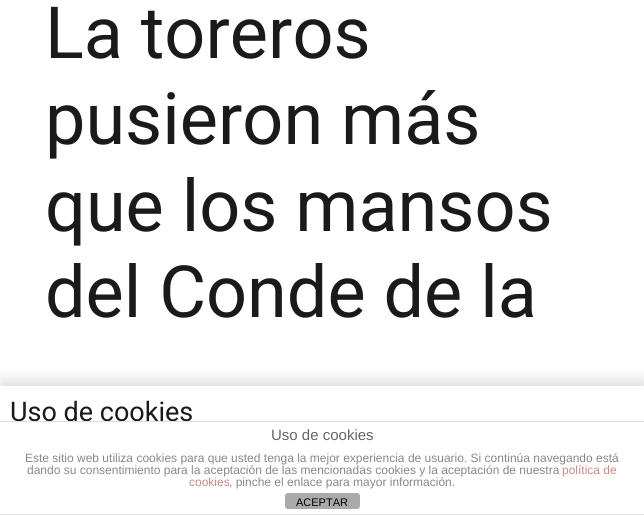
import math
import cairocffi as cairo

surface = cairo.ImageSurface(cairo.FORMAT_RGB24, 644, 515)
ctx = cairo.Context(surface)
options = cairo.FontOptions()
options.set_hint_metrics(cairo.HINT_METRICS_OFF)
options.set_hint_style(cairo.HINT_STYLE_NONE)
ctx.set_font_options(options)
ctx.set_miter_limit(4)


def rgb(r, g, b):
    ctx.set_source_rgb(r / 255, g / 255, b / 255)


def face(family, size, italic, bold):
    ctx.select_font_face(family, cairo.FONT_SLANT_ITALIC if italic else cairo.FONT_SLANT_NORMAL, cairo.FONT_WEIGHT_BOLD if bold else cairo.FONT_WEIGHT_NORMAL)
    ctx.set_font_size(size)


def label(x, y, s):
    ctx.move_to(x, y)
    ctx.show_text(s)


def rect(x, y, w, h):
    ctx.rectangle(x, y, w, h)
    ctx.fill()


def rrect(x, y, w, h, r):
    ctx.new_sub_path()
    for i, (u, v) in enumerate([(x + w - r, y + h - r), (x + r, y + h - r), (x + r, y + r), (x + w - r, y + r)]):
        ctx.arc(u, v, r, i * math.pi / 2, (i + 1) * math.pi / 2)
    ctx.close_path()


def soft_shadow(x, y, w, h, r, blur, alpha):
    ctx.push_group_with_content(cairo.CONTENT_ALPHA)
    ctx.set_operator(cairo.OPERATOR_SOURCE)
    for i in range(15, -16, -2):
        e = blur * i / 6
        if min(w, h) + 2 * e > 0:
            ctx.set_source_rgba(0, 0, 0, alpha * math.erfc((i - 1) / 8.5) / 2)
            rrect(x - e, y - e, w + 2 * e, h + 2 * e, max(0, min(r + e + blur * .6, min(w, h) / 2 + e)))
            ctx.fill()
    ctx.mask(ctx.pop_group())


rgb(255, 255, 255)
ctx.paint()
face('Roboto', 72, 0, 0)
rgb(26, 26, 26)
label(45, 58, 'La toreros')
label(45, 144, 'pusieron más')
label(45, 231, 'que los mansos')
label(45, 317, 'del Conde de la')
rgb(0, 0, 0)
soft_shadow(0, 381, 644, 129, 0, 7.5, 0.15)
rgb(255, 255, 255)
rect(0, 386, 644, 35)
face('Roboto', 27, 0, 0)
rgb(26, 26, 26)
label(10, 421, 'Uso de cookies')
rgb(0, 0, 0)
soft_shadow(571, 433, 63, 36, 4, 6.5, 0.75)
rgb(255, 255, 255)
rect(0, 422, 644, 92)
rgb(221, 221, 221)
rect(0, 421, 644, 1)
rect(0, 514, 644, 1)
face('Liberation Sans', 15, 0, 0)
rgb(102, 102, 102)
label(271, 440, 'Uso de cookies')
face('Liberation Sans', 12, 0, 0)
rgb(136, 136, 136)
label(25, 462, 'Este sitio web utiliza cookies para que usted tenga la mejor experiencia de usuario. Si continúa navegando está')
label(27, 474, 'dando su consentimiento para la aceptación de las mencionadas cookies y la aceptación de nuestra')
rgb(204, 136, 136)
label(562, 474, 'política de')
label(189, 486, 'cookies')
rgb(136, 136, 136)
label(229, 486, ', pinche el enlace para mayor información.')
rgb(170, 170, 170)
rrect(285, 493, 75, 16, 3)
ctx.fill()
face('Liberation Sans', 11, 0, 0)
rgb(0, 0, 0)
label(296, 506, 'ACEPTAR')
surface.write_to_png('render.png')
